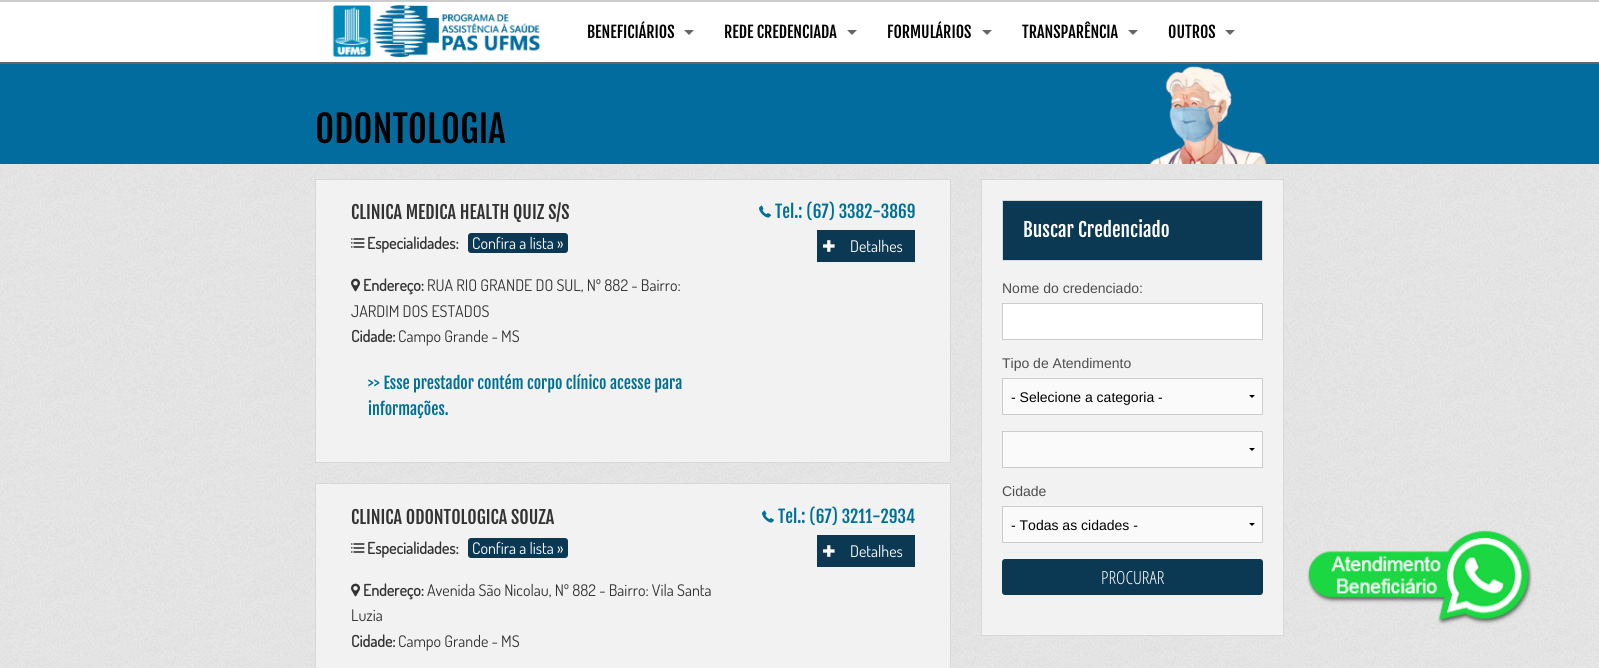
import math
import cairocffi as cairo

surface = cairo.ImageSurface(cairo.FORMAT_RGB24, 1599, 668)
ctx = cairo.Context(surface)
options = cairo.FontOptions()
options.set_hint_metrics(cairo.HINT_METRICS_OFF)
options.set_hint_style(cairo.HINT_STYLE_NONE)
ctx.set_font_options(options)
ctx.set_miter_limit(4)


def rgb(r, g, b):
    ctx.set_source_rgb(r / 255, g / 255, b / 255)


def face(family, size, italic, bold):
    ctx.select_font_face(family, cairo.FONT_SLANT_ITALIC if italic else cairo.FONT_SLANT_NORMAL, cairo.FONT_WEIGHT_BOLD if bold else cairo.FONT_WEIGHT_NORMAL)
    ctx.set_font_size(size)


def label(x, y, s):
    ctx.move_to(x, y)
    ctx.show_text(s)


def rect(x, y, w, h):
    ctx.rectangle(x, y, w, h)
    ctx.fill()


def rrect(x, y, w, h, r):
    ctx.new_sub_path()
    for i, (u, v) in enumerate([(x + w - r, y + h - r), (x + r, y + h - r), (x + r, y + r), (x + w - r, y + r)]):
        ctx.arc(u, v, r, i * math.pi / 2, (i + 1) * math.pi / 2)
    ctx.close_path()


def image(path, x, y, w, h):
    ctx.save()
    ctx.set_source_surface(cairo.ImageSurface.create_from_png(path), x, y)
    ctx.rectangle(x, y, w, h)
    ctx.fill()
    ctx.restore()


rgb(255, 255, 255)
ctx.paint()
image('image0.png', 0, 164, 1599, 504)
rgb(204, 204, 204)
rect(0, 0, 1599, 2)
rgb(102, 102, 102)
rect(0, 62, 1599, 2)
image('image1.png', 332, 5, 209, 52)
face('Fjalla One', 16, 0, 0)
rgb(0, 0, 0)
label(587, 38, 'BENEFICIÁRIOS')
rgb(102, 102, 102)
ctx.new_path()
ctx.move_to(684, 30)
ctx.line_to(694, 30)
ctx.line_to(689, 35)
ctx.close_path()
ctx.fill()
rgb(0, 0, 0)
label(724, 38, 'REDE CREDENCIADA')
rgb(102, 102, 102)
ctx.new_path()
ctx.move_to(847, 30)
ctx.line_to(857, 30)
ctx.line_to(852, 35)
ctx.close_path()
ctx.fill()
rgb(0, 0, 0)
label(887, 38, 'FORMULÁRIOS')
rgb(102, 102, 102)
ctx.new_path()
ctx.move_to(982, 30)
ctx.line_to(992, 30)
ctx.line_to(987, 35)
ctx.close_path()
ctx.fill()
rgb(0, 0, 0)
label(1022, 38, 'TRANSPARÊNCIA')
rgb(102, 102, 102)
ctx.new_path()
ctx.move_to(1128, 30)
ctx.line_to(1138, 30)
ctx.line_to(1133, 35)
ctx.close_path()
ctx.fill()
rgb(0, 0, 0)
label(1168, 38, 'OUTROS')
rgb(102, 102, 102)
ctx.new_path()
ctx.move_to(1225, 30)
ctx.line_to(1235, 30)
ctx.line_to(1230, 35)
ctx.close_path()
ctx.fill()
rgb(2, 108, 158)
rect(0, 64, 1599, 100)
image('image2.png', 1149, 66, 118, 98)
face('Fjalla One', 36.75, 0, 0)
rgb(0, 0, 0)
label(315, 143, 'ODONTOLOGIA')
rgb(242, 242, 242)
ctx.rectangle(315.5, 179.5, 635, 283)
ctx.fill_preserve()
rgb(216, 216, 216)
ctx.set_line_width(1)
ctx.stroke()
face('Fjalla One', 18, 0, 0)
rgb(51, 51, 51)
label(351, 219, 'CLINICA MEDICA HEALTH QUIZ S/S')
image('image3.png', 351, 238, 14, 10)
face('Dosis', 16, 0, 1)
label(367, 249, 'Especialidades:')
rgb(11, 57, 84)
rrect(468, 233, 100, 20, 3)
ctx.fill()
face('Dosis', 16, 0, 0)
rgb(255, 255, 255)
label(472, 249, 'Confira a lista »')
image('image4.png', 351, 278, 9, 14)
face('Dosis', 16, 0, 1)
rgb(51, 51, 51)
label(363, 291, 'Endereço:')
face('Dosis', 16, 0, 0)
label(427, 291, 'RUA RIO GRANDE DO SUL, Nº 882 - Bairro:')
label(351, 317, 'JARDIM DOS ESTADOS')
face('Dosis', 16, 0, 1)
label(351, 342, 'Cidade:')
face('Dosis', 16, 0, 0)
label(398, 342, 'Campo Grande - MS')
image('image5.png', 759, 205, 13, 13)
face('Fjalla One', 17.25, 0, 0)
rgb(0, 112, 149)
label(775, 218, 'Tel.: (67) 3382-3869')
rgb(11, 57, 84)
rect(817, 230, 98, 32)
image('image6.png', 823, 240, 12, 12)
face('Dosis', 16, 0, 0)
rgb(255, 255, 255)
label(850, 252, 'Detalhes')
face('Fjalla One', 16, 0, 0)
rgb(0, 112, 149)
label(368, 389, '>> Esse prestador contém corpo clínico acesse para')
label(368, 415, 'informações.')
rgb(242, 242, 242)
ctx.rectangle(315.5, 483.5, 635, 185)
ctx.fill_preserve()
rgb(216, 216, 216)
ctx.stroke()
face('Fjalla One', 18, 0, 0)
rgb(51, 51, 51)
label(351, 524, 'CLINICA ODONTOLOGICA SOUZA')
image('image3.png', 351, 543, 14, 10)
face('Dosis', 16, 0, 1)
label(367, 554, 'Especialidades:')
rgb(11, 57, 84)
rrect(468, 538, 100, 20, 3)
ctx.fill()
face('Dosis', 16, 0, 0)
rgb(255, 255, 255)
label(472, 554, 'Confira a lista »')
image('image4.png', 351, 583, 9, 14)
face('Dosis', 16, 0, 1)
rgb(51, 51, 51)
label(363, 596, 'Endereço:')
face('Dosis', 16, 0, 0)
label(427, 596, 'Avenida São Nicolau, Nº 882 - Bairro: Vila Santa')
label(351, 621, 'Luzia')
face('Dosis', 16, 0, 1)
label(351, 647, 'Cidade:')
face('Dosis', 16, 0, 0)
label(398, 647, 'Campo Grande - MS')
image('image5.png', 762, 510, 13, 13)
face('Fjalla One', 17.25, 0, 0)
rgb(0, 112, 149)
label(778, 523, 'Tel.: (67) 3211-2934')
rgb(11, 57, 84)
rect(817, 535, 98, 32)
image('image6.png', 823, 545, 12, 12)
face('Dosis', 16, 0, 0)
rgb(255, 255, 255)
label(850, 557, 'Detalhes')
rgb(242, 242, 242)
ctx.rectangle(981.5, 179.5, 302, 456)
ctx.fill_preserve()
rgb(216, 216, 216)
ctx.stroke()
rgb(11, 57, 84)
ctx.rectangle(1002.5, 200.5, 260, 60)
ctx.fill_preserve()
rgb(216, 216, 216)
ctx.stroke()
face('Fjalla One', 19.25, 0, 0)
rgb(255, 255, 255)
label(1023, 237, 'Buscar Credenciado')
face('Liberation Sans', 14, 0, 0)
rgb(77, 77, 77)
label(1002, 293, 'Nome do credenciado:')
rgb(255, 255, 255)
ctx.rectangle(1002.5, 303.5, 260, 36)
ctx.fill_preserve()
rgb(204, 204, 204)
ctx.stroke()
rgb(77, 77, 77)
label(1002, 368, 'Tipo de Atendimento')
rgb(250, 250, 250)
rect(1003, 379, 259, 35)
rgb(0, 0, 0)
ctx.new_path()
ctx.move_to(1255, 395)
ctx.line_to(1252, 398)
ctx.line_to(1249, 395)
ctx.close_path()
ctx.fill()
ctx.rectangle(1002.5, 378.5, 260, 36)
rgb(204, 204, 204)
ctx.stroke()
rgb(0, 0, 0)
label(1011, 402, '- Selecione a categoria -')
rgb(250, 250, 250)
rect(1003, 432, 259, 35)
rgb(0, 0, 0)
ctx.new_path()
ctx.move_to(1255, 448)
ctx.line_to(1252, 451)
ctx.line_to(1249, 448)
ctx.close_path()
ctx.fill()
ctx.rectangle(1002.5, 431.5, 260, 36)
rgb(204, 204, 204)
ctx.stroke()
rgb(77, 77, 77)
label(1002, 496, 'Cidade')
rgb(250, 250, 250)
rect(1003, 507, 259, 35)
rgb(0, 0, 0)
ctx.new_path()
ctx.move_to(1255, 523)
ctx.line_to(1252, 526)
ctx.line_to(1249, 523)
ctx.close_path()
ctx.fill()
ctx.rectangle(1002.5, 506.5, 260, 36)
rgb(204, 204, 204)
ctx.stroke()
rgb(0, 0, 0)
label(1011, 530, '- Todas as cidades -')
rgb(11, 57, 84)
rrect(1002, 559, 261, 36, 3)
ctx.fill()
face('Open Sans Condensed Light', 18, 0, 0)
rgb(255, 255, 255)
label(1101, 584, 'PROCURAR')
image('image7.png', 1307, 530, 225, 95)
surface.write_to_png('render.png')
